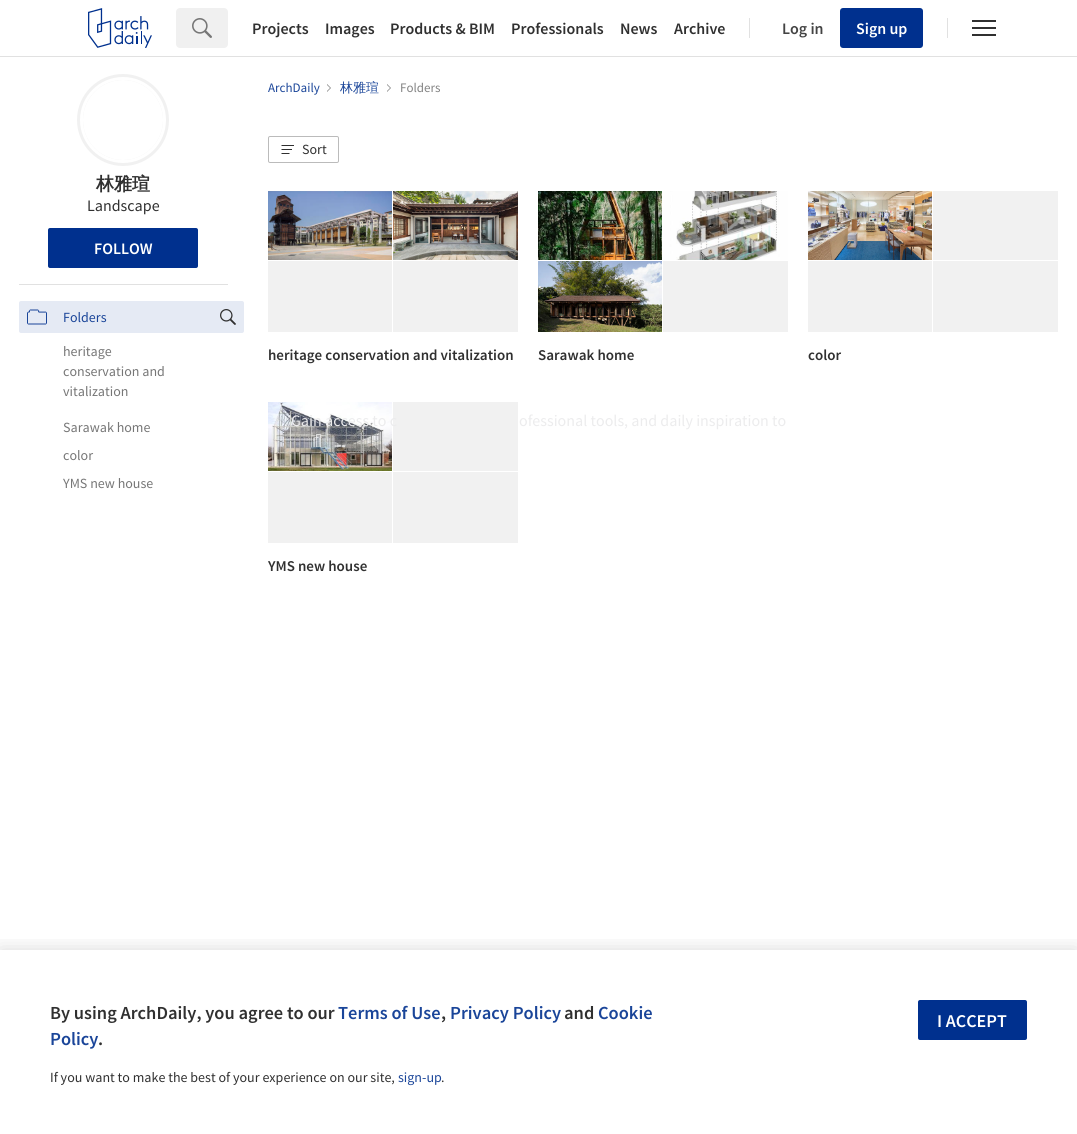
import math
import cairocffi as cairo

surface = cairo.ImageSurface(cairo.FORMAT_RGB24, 1077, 1134)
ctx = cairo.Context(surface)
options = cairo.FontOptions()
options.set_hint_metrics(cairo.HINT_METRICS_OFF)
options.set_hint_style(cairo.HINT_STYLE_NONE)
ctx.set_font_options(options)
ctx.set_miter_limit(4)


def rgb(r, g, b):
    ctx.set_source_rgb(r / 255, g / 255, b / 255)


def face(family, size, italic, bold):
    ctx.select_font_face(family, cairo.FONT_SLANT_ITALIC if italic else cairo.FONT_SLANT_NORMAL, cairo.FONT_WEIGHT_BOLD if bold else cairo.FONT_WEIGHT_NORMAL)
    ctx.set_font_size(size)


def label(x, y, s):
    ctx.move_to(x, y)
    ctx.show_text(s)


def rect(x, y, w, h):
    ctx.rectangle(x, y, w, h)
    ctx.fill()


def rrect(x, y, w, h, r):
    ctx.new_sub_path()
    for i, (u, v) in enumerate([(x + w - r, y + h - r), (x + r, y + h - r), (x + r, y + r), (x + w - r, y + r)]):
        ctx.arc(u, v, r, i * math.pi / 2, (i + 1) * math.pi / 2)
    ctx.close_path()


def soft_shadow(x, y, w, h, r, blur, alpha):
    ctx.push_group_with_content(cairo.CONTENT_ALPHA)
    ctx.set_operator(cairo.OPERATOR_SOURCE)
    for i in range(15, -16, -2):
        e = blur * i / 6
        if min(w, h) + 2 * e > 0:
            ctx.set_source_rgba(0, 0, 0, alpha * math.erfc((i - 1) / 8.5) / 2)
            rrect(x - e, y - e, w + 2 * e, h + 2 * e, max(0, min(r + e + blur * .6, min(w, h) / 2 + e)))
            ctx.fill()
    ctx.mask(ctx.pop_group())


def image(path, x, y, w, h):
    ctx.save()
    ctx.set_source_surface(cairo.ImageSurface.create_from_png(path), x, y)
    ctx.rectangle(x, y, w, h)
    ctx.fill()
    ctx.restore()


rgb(255, 255, 255)
ctx.paint()
rgb(225, 225, 225)
rect(0, 56, 1077, 1)
image('image0.png', 88, 8, 64, 40)
rgb(240, 240, 240)
rrect(176, 8, 52, 40, 4)
ctx.fill()
image('image1.png', 192, 18, 20, 20)
face('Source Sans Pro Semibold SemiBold', 16, 0, 0)
rgb(48, 48, 48)
label(252, 34, 'Projects')
label(325, 34, 'Images')
label(390, 34, 'Products & BIM')
label(511, 34, 'Professionals')
label(620, 34, 'News')
label(674, 34, 'Archive')
rgb(225, 225, 225)
rect(749, 18, 1, 20)
rgb(68, 68, 68)
label(782, 34, 'Log in')
rgb(0, 48, 142)
rrect(840, 8, 83, 40, 3)
ctx.fill()
rgb(255, 255, 255)
label(856, 34, 'Sign up')
rgb(225, 225, 225)
rect(947, 18, 1, 20)
rgb(48, 48, 48)
rect(972, 27, 24, 2)
rect(972, 20, 24, 2)
rect(972, 34, 24, 2)
ctx.save()
ctx.rectangle(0, 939, 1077, 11)
ctx.clip()
rgb(0, 0, 0)
soft_shadow(0, 950, 1077, 184, 0, 10, 0.15)
ctx.restore()
face('Source Sans Pro Semibold SemiBold', 18.4, 0, 0)
label(50, 1019, 'By using ArchDaily, you agree to our')
rgb(26, 69, 153)
label(338, 1019, 'Terms of Use')
rgb(48, 48, 48)
label(441, 1019, ',')
rgb(26, 69, 153)
label(450, 1019, 'Privacy Policy')
rgb(48, 48, 48)
label(564, 1019, 'and')
rgb(26, 69, 153)
label(598, 1019, 'Cookie')
label(50, 1045, 'Policy')
rgb(48, 48, 48)
label(98, 1045, '.')
face('Source Sans Pro', 14, 0, 0)
label(50, 1082, 'If you want to make the best of your experience on our site,')
rgb(26, 69, 153)
label(398, 1082, 'sign-up')
rgb(48, 48, 48)
label(441, 1082, '.')
rgb(0, 48, 142)
rrect(918, 1000, 109, 40, 2)
ctx.fill()
face('Source Sans Pro Semibold SemiBold', 18, 0, 0)
rgb(255, 255, 255)
label(937, 1027, 'I ACCEPT')
ctx.new_path()
ctx.arc(123, 120, 43, 0, 2 * math.pi)
rgb(241, 241, 241)
ctx.set_line_width(6)
ctx.stroke()
ctx.arc(123, 120, 41.5, 0, 2 * math.pi)
rgb(255, 255, 255)
ctx.set_line_width(3)
ctx.stroke()
face('WenQuanYi Zen Hei', 18, 0, 1)
rgb(48, 48, 48)
label(96, 190, '林雅瑄')
face('Source Sans Pro', 16, 0, 0)
label(87, 211, 'Landscape')
rgb(0, 48, 142)
rrect(48, 228, 150, 40, 2)
ctx.fill()
face('Source Sans Pro Semibold SemiBold', 16, 0, 0)
rgb(255, 255, 255)
label(94, 254, 'FOLLOW')
rgb(225, 225, 225)
rect(19, 284, 209, 1)
rgb(229, 234, 244)
rrect(19, 301, 225, 32, 2)
ctx.fill()
image('image2.png', 27, 309, 20, 16)
face('Source Sans Pro', 14, 0, 0)
rgb(26, 69, 153)
label(63, 322, 'Folders')
image('image3.png', 220, 309, 16, 16)
rgb(118, 118, 118)
label(63, 356, 'heritage')
label(63, 376, 'conservation and')
label(63, 396, 'vitalization')
label(63, 432, 'Sarawak home')
label(63, 460, 'color')
label(63, 488, 'YMS new house')
face('Source Sans Pro', 13, 0, 0)
rgb(26, 69, 153)
label(268, 92, 'ArchDaily')
rgb(130, 130, 130)
ctx.new_path()
ctx.move_to(327, 92)
ctx.line_to(327, 84)
ctx.line_to(331, 88)
ctx.close_path()
ctx.fill()
rgb(255, 255, 255)
ctx.new_path()
ctx.move_to(326, 92)
ctx.line_to(326, 84)
ctx.line_to(330, 88)
ctx.close_path()
ctx.fill()
face('WenQuanYi Zen Hei Medium', 13, 0, 0)
rgb(26, 69, 153)
label(340, 92, '林雅瑄')
rgb(130, 130, 130)
ctx.new_path()
ctx.move_to(387, 92)
ctx.line_to(387, 84)
ctx.line_to(391, 88)
ctx.close_path()
ctx.fill()
rgb(255, 255, 255)
ctx.new_path()
ctx.move_to(386, 92)
ctx.line_to(386, 84)
ctx.line_to(390, 88)
ctx.close_path()
ctx.fill()
face('Source Sans Pro', 13, 0, 0)
rgb(130, 130, 130)
label(400, 92, 'Folders')
rrect(268.5, 136.5, 70, 26, 1.5)
rgb(187, 187, 187)
ctx.set_line_width(1)
ctx.stroke()
image('image4.png', 281, 145, 13, 9)
face('Source Sans Pro', 14, 0, 0)
rgb(48, 48, 48)
label(302, 154, 'Sort')
image('image5.png', 268, 191, 124, 69)
image('image6.png', 393, 191, 125, 69)
rgb(241, 241, 241)
rect(268, 261, 124, 71)
rect(393, 261, 125, 71)
face('Source Sans Pro Semibold SemiBold', 15, 0, 0)
rgb(48, 48, 48)
label(268, 360, 'heritage conservation and vitalization')
image('image7.png', 538, 191, 124, 69)
image('image8.png', 663, 191, 125, 69)
image('image9.png', 538, 261, 124, 71)
rgb(241, 241, 241)
rect(663, 261, 125, 71)
rgb(48, 48, 48)
label(538, 360, 'Sarawak home')
image('image10.png', 808, 191, 124, 69)
rgb(241, 241, 241)
rect(933, 191, 125, 69)
rect(808, 261, 124, 71)
rect(933, 261, 125, 71)
rgb(48, 48, 48)
label(808, 360, 'color')
image('image11.png', 268, 402, 124, 69)
rgb(241, 241, 241)
rect(393, 402, 125, 69)
rect(268, 472, 124, 71)
rect(393, 472, 125, 71)
rgb(48, 48, 48)
label(268, 571, 'YMS new house')
face('Source Sans Pro', 16, 0, 0)
rgb(236, 236, 237)
label(291, 426, 'Gain access to c')
label(519, 426, 'ofessional tools, and daily inspiration to')
surface.write_to_png('render.png')
